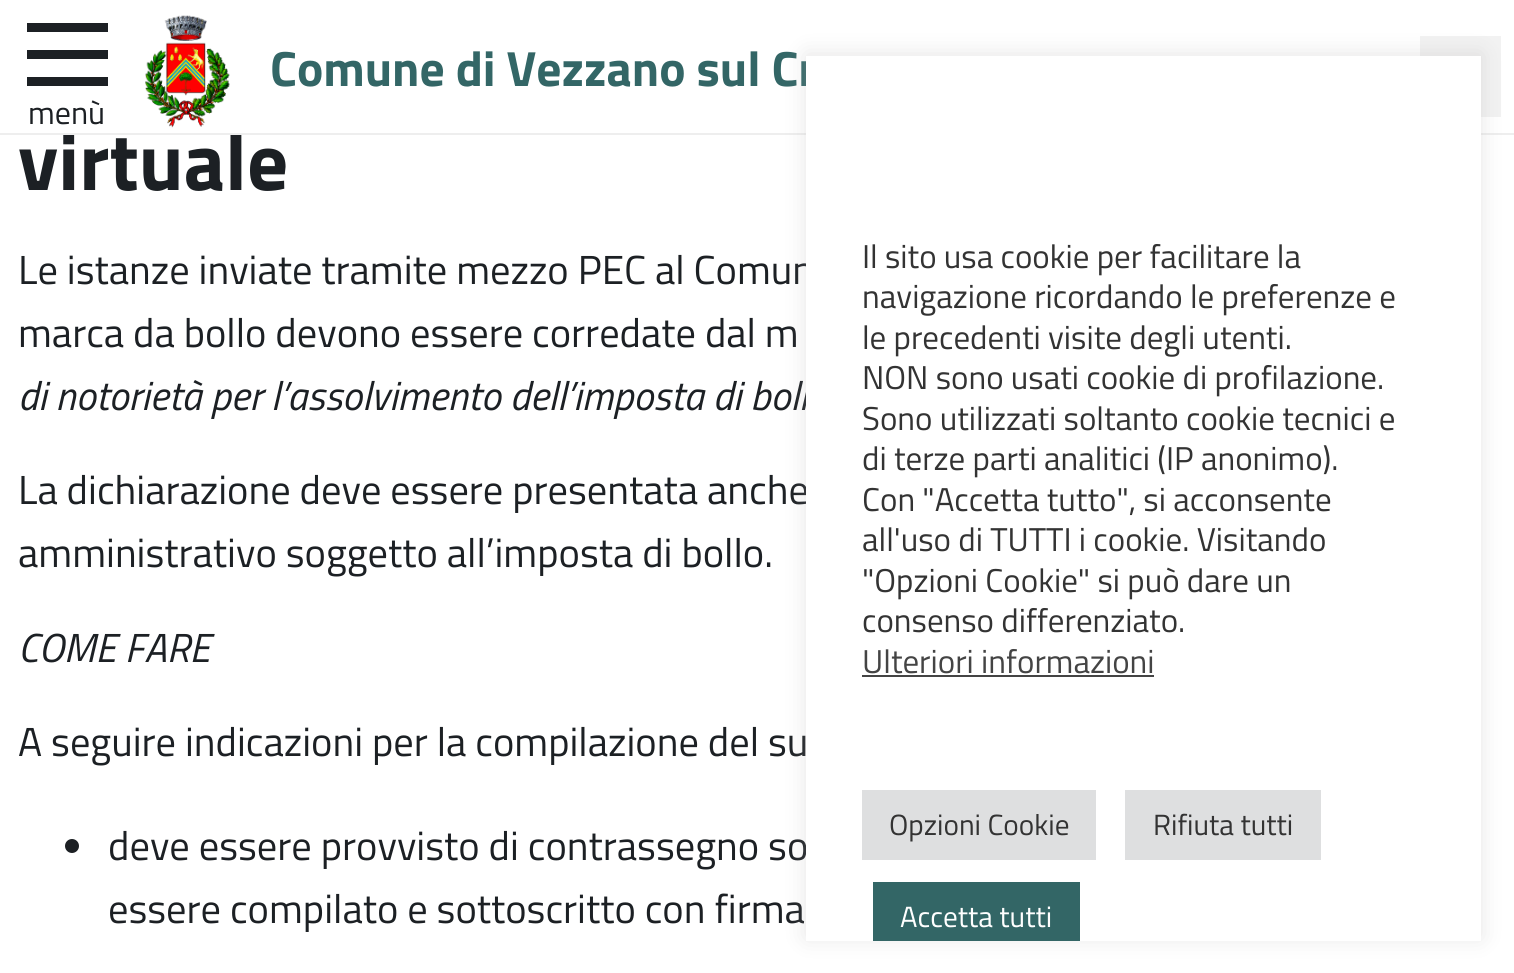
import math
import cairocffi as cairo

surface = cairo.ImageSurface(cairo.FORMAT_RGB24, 1514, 973)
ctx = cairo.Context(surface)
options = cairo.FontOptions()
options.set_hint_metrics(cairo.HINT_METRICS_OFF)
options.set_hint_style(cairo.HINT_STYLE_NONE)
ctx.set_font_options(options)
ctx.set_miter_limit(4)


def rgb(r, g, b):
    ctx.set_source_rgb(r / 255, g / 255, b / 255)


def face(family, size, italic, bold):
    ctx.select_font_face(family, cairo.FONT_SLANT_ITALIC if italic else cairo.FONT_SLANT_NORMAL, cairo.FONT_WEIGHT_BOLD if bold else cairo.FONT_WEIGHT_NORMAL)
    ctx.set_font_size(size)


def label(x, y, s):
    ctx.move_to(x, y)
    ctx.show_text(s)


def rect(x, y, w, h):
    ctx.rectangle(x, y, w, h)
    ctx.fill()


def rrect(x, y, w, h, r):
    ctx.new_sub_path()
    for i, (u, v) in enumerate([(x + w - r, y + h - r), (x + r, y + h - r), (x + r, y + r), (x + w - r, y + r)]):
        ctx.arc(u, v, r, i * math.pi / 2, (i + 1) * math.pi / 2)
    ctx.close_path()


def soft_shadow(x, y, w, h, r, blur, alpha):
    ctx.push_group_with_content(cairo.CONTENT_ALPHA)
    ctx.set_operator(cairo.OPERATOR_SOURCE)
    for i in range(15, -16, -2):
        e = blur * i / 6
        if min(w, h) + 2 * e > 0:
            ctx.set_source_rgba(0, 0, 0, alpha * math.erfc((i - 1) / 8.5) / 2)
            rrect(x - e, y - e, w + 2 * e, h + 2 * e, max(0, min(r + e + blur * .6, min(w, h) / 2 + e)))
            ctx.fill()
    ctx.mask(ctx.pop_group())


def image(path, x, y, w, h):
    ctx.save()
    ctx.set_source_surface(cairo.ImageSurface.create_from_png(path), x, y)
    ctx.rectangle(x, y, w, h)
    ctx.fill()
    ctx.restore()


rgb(255, 255, 255)
ctx.paint()
face('Titillium Web', 81, 0, 1)
rgb(28, 32, 36)
label(18, 190, 'virtuale')
rgb(238, 238, 238)
rect(0, 133, 1514, 2)
image('image0.png', 145, 15, 85, 113)
face('Titillium Web', 49.5, 0, 1)
rgb(51, 102, 102)
label(270, 86, 'Comune di Vezzano sul Cr')
rgb(28, 32, 36)
rect(27, 50, 81, 9)
rect(27, 23, 81, 9)
rect(27, 77, 81, 9)
face('Titillium Web', 32, 0, 0)
label(28, 124, 'menù')
rgb(242, 242, 242)
rect(1420, 36, 81, 81)
face('Titillium Web', 40.5, 0, 0)
rgb(28, 32, 36)
label(18, 284, 'Le istanze inviate tramite mezzo PEC al Comun')
label(18, 347, 'marca da bollo devono essere corredate dal m')
face('Titillium Web', 40.5, 1, 0)
label(18, 410, 'di notorietà per l’assolvimento dell’imposta di boll')
face('Titillium Web', 40.5, 0, 0)
label(18, 504, 'La dichiarazione deve essere presentata anche')
label(18, 567, 'amministrativo soggetto all’imposta di bollo.')
face('Titillium Web', 40.5, 1, 0)
label(18, 662, 'COME FARE')
face('Titillium Web', 40.5, 0, 0)
label(18, 756, 'A seguire indicazioni per la compilazione del su')
ctx.new_path()
ctx.arc(72, 846, 7, 0, 2 * math.pi)
ctx.fill()
label(108, 860, 'deve essere provvisto di contrassegno so')
label(108, 923, 'essere compilato e sottoscritto con firma')
rgb(172, 171, 171)
soft_shadow(806, 54, 675, 884, 0, 11, 0.3)
rgb(255, 255, 255)
rect(806, 56, 675, 885)
face('Titillium Web', 33, 0, 0)
rgb(51, 51, 51)
label(862, 268, 'Il sito usa cookie per facilitare la')
label(862, 308, 'navigazione ricordando le preferenze e')
label(862, 349, 'le precedenti visite degli utenti.')
label(862, 389, 'NON sono usati cookie di profilazione.')
label(862, 430, 'Sono utilizzati soltanto cookie tecnici e')
label(862, 470, 'di terze parti analitici (IP anonimo).')
label(862, 511, 'Con "Accetta tutto", si acconsente')
label(862, 551, 'all\'uso di TUTTI i cookie. Visitando')
label(862, 592, '"Opzioni Cookie" si può dare un')
label(862, 632, 'consenso differenziato.')
rgb(68, 68, 68)
label(862, 673, 'Ulteriori informazioni')
rect(862, 675, 292, 2)
rgb(222, 223, 224)
rect(862, 790, 234, 70)
face('Titillium Web', 29.25, 0, 0)
rgb(51, 51, 51)
label(889, 835, 'Opzioni Cookie')
rgb(222, 223, 224)
rect(1125, 790, 196, 70)
rgb(51, 51, 51)
label(1153, 835, 'Rifiuta tutti')
rgb(51, 102, 102)
rect(873, 882, 207, 59)
rgb(255, 255, 255)
label(900, 927, 'Accetta tutti')
surface.write_to_png('render.png')
